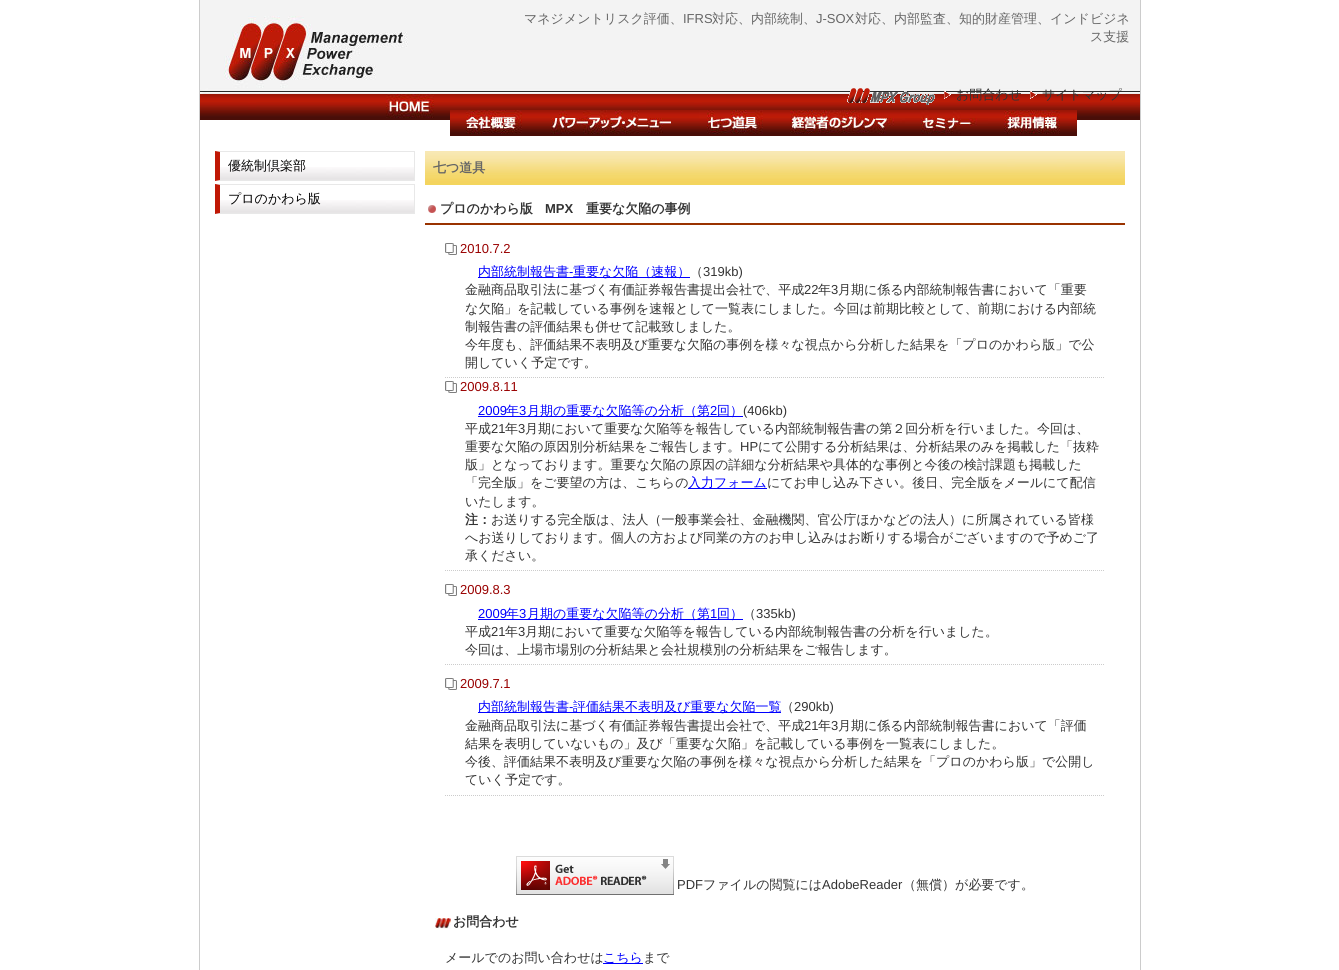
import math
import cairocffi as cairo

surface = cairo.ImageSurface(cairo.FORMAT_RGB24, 1339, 970)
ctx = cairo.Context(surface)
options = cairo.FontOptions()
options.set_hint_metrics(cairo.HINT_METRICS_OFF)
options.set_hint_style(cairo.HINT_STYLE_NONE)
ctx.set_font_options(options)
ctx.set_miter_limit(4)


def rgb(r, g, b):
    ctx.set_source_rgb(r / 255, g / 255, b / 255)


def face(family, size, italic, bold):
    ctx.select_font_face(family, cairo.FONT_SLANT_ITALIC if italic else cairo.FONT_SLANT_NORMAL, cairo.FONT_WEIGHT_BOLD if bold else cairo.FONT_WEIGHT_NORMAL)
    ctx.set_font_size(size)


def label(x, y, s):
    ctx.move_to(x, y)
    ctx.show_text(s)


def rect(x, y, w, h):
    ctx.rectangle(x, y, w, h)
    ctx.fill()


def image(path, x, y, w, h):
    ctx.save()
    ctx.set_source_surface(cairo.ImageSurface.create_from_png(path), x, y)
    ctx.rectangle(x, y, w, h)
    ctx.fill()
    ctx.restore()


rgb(255, 255, 255)
ctx.paint()
rgb(204, 204, 204)
rect(1140, 0, 1, 970)
rect(199, 0, 1, 970)
image('image0.png', 200, 0, 940, 94)
face('WenQuanYi Zen Hei Medium', 13, 0, 0)
rgb(102, 102, 102)
label(524, 23, 'マネジメントリスク評価、')
face('Liberation Sans', 13, 0, 0)
label(683, 23, 'IFRS')
face('WenQuanYi Zen Hei Medium', 13, 0, 0)
label(712, 23, '対応、内部統制、')
face('Liberation Sans', 13, 0, 0)
label(816, 23, 'J-SOX')
face('WenQuanYi Zen Hei Medium', 13, 0, 0)
label(855, 23, '対応、内部監査、知的財産管理、インドビジネ')
label(1090, 41, 'ス支援')
image('image4.png', 200, 94, 940, 26)
image('image1.png', 847, 88, 88, 17)
image('image2.png', 944, 91, 7, 8)
rgb(51, 51, 51)
label(956, 99, 'お問合わせ')
image('image3.png', 1030, 91, 7, 8)
label(1042, 99, 'サイトマップ')
image('image5.png', 386, 94, 48, 24)
image('image6.png', 450, 110, 85, 26)
image('image7.png', 535, 110, 156, 26)
image('image8.png', 691, 110, 83, 26)
image('image9.png', 774, 110, 131, 26)
image('image10.png', 905, 110, 83, 26)
image('image11.png', 988, 110, 89, 26)
image('image12.png', 220, 167, 194, 13)
rgb(232, 232, 232)
ctx.new_path()
ctx.move_to(215, 151)
ctx.line_to(415, 151)
ctx.line_to(414, 152)
ctx.line_to(220, 152)
ctx.close_path()
ctx.fill()
rect(414, 151, 1, 30)
ctx.new_path()
ctx.move_to(415, 181)
ctx.line_to(215, 181)
ctx.line_to(220, 180)
ctx.line_to(414, 180)
ctx.close_path()
ctx.fill()
rgb(192, 24, 5)
ctx.new_path()
ctx.move_to(215, 181)
ctx.line_to(215, 151)
ctx.line_to(220, 152)
ctx.line_to(220, 180)
ctx.close_path()
ctx.fill()
rgb(0, 0, 0)
label(228, 170, '優統制倶楽部')
image('image12.png', 220, 200, 194, 13)
rgb(232, 232, 232)
ctx.new_path()
ctx.move_to(215, 184)
ctx.line_to(415, 184)
ctx.line_to(414, 185)
ctx.line_to(220, 185)
ctx.close_path()
ctx.fill()
rect(414, 184, 1, 30)
ctx.new_path()
ctx.move_to(415, 214)
ctx.line_to(215, 214)
ctx.line_to(220, 213)
ctx.line_to(414, 213)
ctx.close_path()
ctx.fill()
rgb(192, 24, 5)
ctx.new_path()
ctx.move_to(215, 214)
ctx.line_to(215, 184)
ctx.line_to(220, 185)
ctx.line_to(220, 213)
ctx.close_path()
ctx.fill()
rgb(0, 0, 0)
label(228, 203, 'プロのかわら版')
image('image13.png', 425, 151, 700, 34)
face('WenQuanYi Zen Hei', 13, 0, 1)
rgb(102, 102, 102)
label(433, 172, '七つ道具')
image('image14.png', 428, 205, 8, 8)
rgb(153, 51, 0)
rect(425, 223, 700, 2)
rgb(51, 51, 51)
label(440, 213, 'プロのかわら版')
face('Liberation Sans', 13, 0, 1)
label(545, 213, 'MPX')
face('WenQuanYi Zen Hei', 13, 0, 1)
label(586, 213, '重要な欠陥の事例')
image('image15.png', 445, 243, 12, 12)
ctx.new_path()
ctx.move_to(445, 377.5)
ctx.line_to(1105, 377.5)
rgb(204, 204, 204)
ctx.set_line_width(1)
ctx.set_dash([1, 1])
ctx.stroke()
face('Liberation Sans', 13, 0, 0)
rgb(153, 0, 0)
label(460, 253, '2010.7.2')
rgb(0, 0, 255)
rect(478, 277, 212, 1)
face('WenQuanYi Zen Hei Medium', 13, 0, 0)
label(478, 276, '内部統制報告書')
face('Liberation Sans', 13, 0, 0)
label(569, 276, '-')
face('WenQuanYi Zen Hei Medium', 13, 0, 0)
label(573, 276, '重要な欠陥（速報）')
rgb(51, 51, 51)
label(690, 276, '（')
face('Liberation Sans', 13, 0, 0)
label(703, 276, '319kb)')
face('WenQuanYi Zen Hei Medium', 13, 0, 0)
label(465, 294, '金融商品取引法に基づく有価証券報告書提出会社で、平成')
face('Liberation Sans', 13, 0, 0)
label(804, 294, '22')
face('WenQuanYi Zen Hei Medium', 13, 0, 0)
label(818, 294, '年')
face('Liberation Sans', 13, 0, 0)
label(831, 294, '3')
face('WenQuanYi Zen Hei Medium', 13, 0, 0)
label(838, 294, '月期に係る内部統制報告書において「重要')
label(465, 313, 'な欠陥」を記載している事例を速報として一覧表にしました。今回は前期比較として、前期における内部統')
label(465, 331, '制報告書の評価結果も併せて記載致しました。')
label(465, 349, '今年度も、評価結果不表明及び重要な欠陥の事例を様々な視点から分析した結果を「プロのかわら版」で公')
label(465, 367, '開していく予定です。')
image('image15.png', 445, 381, 12, 12)
ctx.new_path()
ctx.move_to(445, 570.5)
ctx.line_to(1105, 570.5)
rgb(204, 204, 204)
ctx.stroke()
face('Liberation Sans', 13, 0, 0)
rgb(153, 0, 0)
label(460, 391, '2009.8.11')
rgb(0, 0, 255)
label(478, 415, '2009')
rect(478, 416, 265, 1)
face('WenQuanYi Zen Hei Medium', 13, 0, 0)
label(506, 415, '年')
face('Liberation Sans', 13, 0, 0)
label(519, 415, '3')
face('WenQuanYi Zen Hei Medium', 13, 0, 0)
label(527, 415, '月期の重要な欠陥等の分析（第')
face('Liberation Sans', 13, 0, 0)
label(710, 415, '2')
face('WenQuanYi Zen Hei Medium', 13, 0, 0)
label(717, 415, '回）')
face('Liberation Sans', 13, 0, 0)
rgb(51, 51, 51)
label(743, 415, '(406kb)')
face('WenQuanYi Zen Hei Medium', 13, 0, 0)
label(465, 433, '平成')
face('Liberation Sans', 13, 0, 0)
label(491, 433, '21')
face('WenQuanYi Zen Hei Medium', 13, 0, 0)
label(505, 433, '年')
face('Liberation Sans', 13, 0, 0)
label(518, 433, '3')
face('WenQuanYi Zen Hei Medium', 13, 0, 0)
label(525, 433, '月期において重要な欠陥等を報告している内部統制報告書の第２回分析を行いました。今回は、')
label(465, 451, '重要な欠陥の原因別分析結果をご報告します。')
face('Liberation Sans', 13, 0, 0)
label(740, 451, 'HP')
face('WenQuanYi Zen Hei Medium', 13, 0, 0)
label(758, 451, 'にて公開する分析結果は、分析結果のみを掲載した「抜粋')
label(465, 469, '版」となっております。重要な欠陥の原因の詳細な分析結果や具体的な事例と今後の検討課題も掲載した')
label(465, 487, '「完全版」をご要望の方は、こちらの')
rgb(0, 0, 255)
rect(688, 488, 79, 1)
label(688, 487, '入力フォーム')
rgb(51, 51, 51)
label(767, 487, 'にてお申し込み下さい。後日、完全版をメールにて配信')
label(465, 506, 'いたします。')
face('WenQuanYi Zen Hei', 13, 0, 1)
label(465, 524, '注：')
face('WenQuanYi Zen Hei Medium', 13, 0, 0)
label(491, 524, 'お送りする完全版は、法人（一般事業会社、金融機関、官公庁ほかなどの法人）に所属されている皆様')
label(465, 542, 'へお送りしております。個人の方および同業の方のお申し込みはお断りする場合がございますので予めご了')
label(465, 560, '承ください。')
image('image15.png', 445, 584, 12, 12)
ctx.new_path()
ctx.move_to(445, 664.5)
ctx.line_to(1105, 664.5)
rgb(204, 204, 204)
ctx.stroke()
face('Liberation Sans', 13, 0, 0)
rgb(153, 0, 0)
label(460, 594, '2009.8.3')
rgb(0, 0, 255)
label(478, 618, '2009')
rect(478, 619, 265, 1)
face('WenQuanYi Zen Hei Medium', 13, 0, 0)
label(506, 618, '年')
face('Liberation Sans', 13, 0, 0)
label(519, 618, '3')
face('WenQuanYi Zen Hei Medium', 13, 0, 0)
label(527, 618, '月期の重要な欠陥等の分析（第')
face('Liberation Sans', 13, 0, 0)
label(710, 618, '1')
face('WenQuanYi Zen Hei Medium', 13, 0, 0)
label(717, 618, '回）')
rgb(51, 51, 51)
label(743, 618, '（')
face('Liberation Sans', 13, 0, 0)
label(756, 618, '335kb)')
face('WenQuanYi Zen Hei Medium', 13, 0, 0)
label(465, 636, '平成')
face('Liberation Sans', 13, 0, 0)
label(491, 636, '21')
face('WenQuanYi Zen Hei Medium', 13, 0, 0)
label(505, 636, '年')
face('Liberation Sans', 13, 0, 0)
label(518, 636, '3')
face('WenQuanYi Zen Hei Medium', 13, 0, 0)
label(525, 636, '月期において重要な欠陥等を報告している内部統制報告書の分析を行いました。')
label(465, 654, '今回は、上場市場別の分析結果と会社規模別の分析結果をご報告します。')
image('image15.png', 445, 678, 12, 12)
ctx.new_path()
ctx.move_to(445, 795.5)
ctx.line_to(1105, 795.5)
rgb(204, 204, 204)
ctx.stroke()
face('Liberation Sans', 13, 0, 0)
rgb(153, 0, 0)
label(460, 688, '2009.7.1')
rgb(0, 0, 255)
rect(478, 712, 303, 1)
face('WenQuanYi Zen Hei Medium', 13, 0, 0)
label(478, 711, '内部統制報告書')
face('Liberation Sans', 13, 0, 0)
label(569, 711, '-')
face('WenQuanYi Zen Hei Medium', 13, 0, 0)
label(573, 711, '評価結果不表明及び重要な欠陥一覧')
rgb(51, 51, 51)
label(781, 711, '（')
face('Liberation Sans', 13, 0, 0)
label(794, 711, '290kb)')
face('WenQuanYi Zen Hei Medium', 13, 0, 0)
label(465, 730, '金融商品取引法に基づく有価証券報告書提出会社で、平成')
face('Liberation Sans', 13, 0, 0)
label(804, 730, '21')
face('WenQuanYi Zen Hei Medium', 13, 0, 0)
label(818, 730, '年')
face('Liberation Sans', 13, 0, 0)
label(831, 730, '3')
face('WenQuanYi Zen Hei Medium', 13, 0, 0)
label(838, 730, '月期に係る内部統制報告書において「評価')
label(465, 748, '結果を表明していないもの」及び「重要な欠陥」を記載している事例を一覧表にしました。')
label(465, 766, '今後、評価結果不表明及び重要な欠陥の事例を様々な視点から分析した結果を「プロのかわら版」で公開し')
label(465, 784, 'ていく予定です。')
image('image16.png', 516, 856, 158, 39)
face('Liberation Sans', 13, 0, 0)
label(677, 889, 'PDF')
face('WenQuanYi Zen Hei Medium', 13, 0, 0)
label(703, 889, 'ファイルの閲覧には')
face('Liberation Sans', 13, 0, 0)
label(822, 889, 'AdobeReader')
face('WenQuanYi Zen Hei Medium', 13, 0, 0)
label(903, 889, '（無償）が必要です。')
image('image17.png', 435, 918, 16, 11)
face('WenQuanYi Zen Hei', 13, 0, 1)
label(453, 926, 'お問合わせ')
face('WenQuanYi Zen Hei Medium', 13, 0, 0)
label(445, 962, 'メールでのお問い合わせは')
rgb(0, 0, 255)
rect(603, 963, 40, 1)
label(603, 962, 'こちら')
rgb(51, 51, 51)
label(643, 962, 'まで')
surface.write_to_png('render.png')
